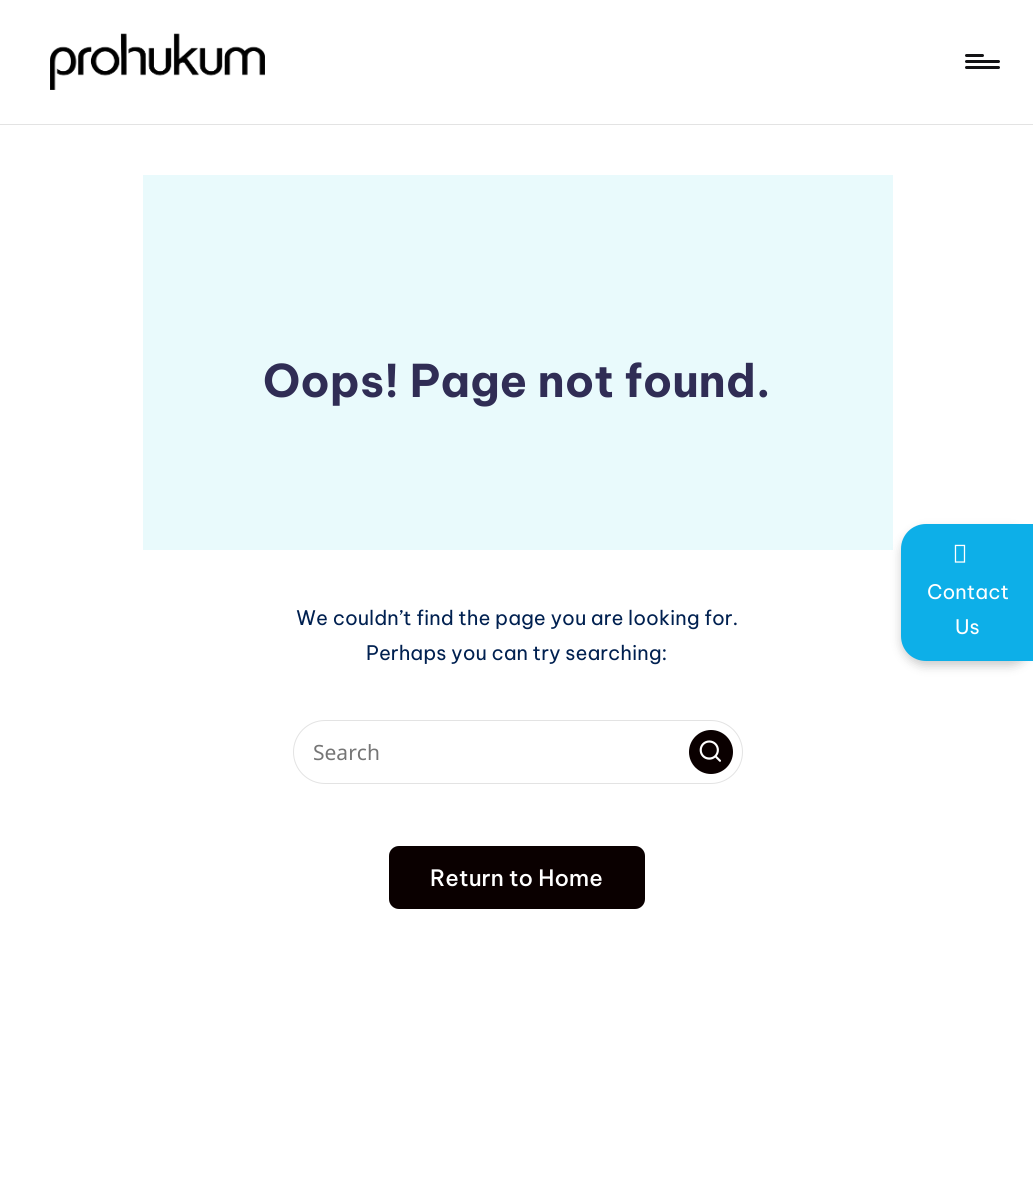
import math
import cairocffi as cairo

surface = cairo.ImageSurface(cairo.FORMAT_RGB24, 1033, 1184)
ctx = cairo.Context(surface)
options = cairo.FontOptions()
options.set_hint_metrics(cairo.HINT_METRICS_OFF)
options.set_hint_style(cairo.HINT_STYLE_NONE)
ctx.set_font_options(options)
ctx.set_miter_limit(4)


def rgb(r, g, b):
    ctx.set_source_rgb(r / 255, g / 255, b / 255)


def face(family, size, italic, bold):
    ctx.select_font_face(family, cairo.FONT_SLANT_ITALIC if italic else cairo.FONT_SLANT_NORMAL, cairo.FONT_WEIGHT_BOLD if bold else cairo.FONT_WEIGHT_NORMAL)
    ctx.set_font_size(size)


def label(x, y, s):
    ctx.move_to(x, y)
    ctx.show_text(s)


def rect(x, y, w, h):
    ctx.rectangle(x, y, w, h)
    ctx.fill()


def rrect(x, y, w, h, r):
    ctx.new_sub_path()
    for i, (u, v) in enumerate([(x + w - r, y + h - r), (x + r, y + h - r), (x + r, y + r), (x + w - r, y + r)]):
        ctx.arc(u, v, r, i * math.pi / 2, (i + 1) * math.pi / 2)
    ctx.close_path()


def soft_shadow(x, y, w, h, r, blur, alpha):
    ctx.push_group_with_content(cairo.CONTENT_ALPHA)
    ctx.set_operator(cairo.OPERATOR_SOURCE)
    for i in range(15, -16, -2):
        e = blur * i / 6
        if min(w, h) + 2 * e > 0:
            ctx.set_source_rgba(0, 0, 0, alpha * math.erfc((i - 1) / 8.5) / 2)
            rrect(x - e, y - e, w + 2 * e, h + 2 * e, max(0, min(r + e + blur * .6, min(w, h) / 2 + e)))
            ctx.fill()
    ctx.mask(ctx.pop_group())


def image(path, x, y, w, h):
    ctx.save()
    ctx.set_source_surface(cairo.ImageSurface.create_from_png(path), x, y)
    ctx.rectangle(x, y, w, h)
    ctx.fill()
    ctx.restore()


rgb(255, 255, 255)
ctx.paint()
rgb(227, 227, 227)
rect(0, 124, 1033, 1)
image('image0.png', 50, 33, 215, 57)
rgb(19, 19, 21)
rrect(965, 60, 35, 3, 1.5)
ctx.fill()
rrect(965, 54, 19, 3, 1.5)
ctx.fill()
rrect(965, 66, 35, 3, 1.5)
ctx.fill()
rgb(233, 250, 252)
rect(143, 175, 750, 375)
face('Be Vietnam Pro', 45, 0, 1)
rgb(48, 45, 85)
label(263, 397, 'Oops! Page not found.')
face('Be Vietnam Pro', 20, 0, 0)
rgb(0, 32, 80)
label(296, 625, 'We couldn’t find the page you are looking for.')
label(366, 660, 'Perhaps you can try searching:')
rrect(293.5, 720.5, 449, 63, 31.5)
rgb(227, 227, 227)
ctx.set_line_width(1)
ctx.stroke()
face('Noto Sans', 21, 0, 0)
rgb(117, 117, 117)
label(313, 760, 'Search')
rgb(10, 0, 0)
ctx.new_path()
ctx.arc(711, 752, 22, 0, 2 * math.pi)
ctx.fill()
image('image1.png', 699, 740, 22, 22)
rrect(389, 846, 256, 63, 10)
ctx.fill()
rrect(389.5, 846.5, 255, 62, 9.5)
ctx.set_source_rgba(0, 0, 0, 0.12)
ctx.stroke()
face('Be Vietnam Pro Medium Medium', 22.5, 0, 0)
rgb(255, 255, 255)
label(430, 886, 'Return to Home')
rgb(0, 0, 0)
soft_shadow(901, 529, 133, 137, 25, 5, 0.2)
rgb(13, 175, 232)
ctx.new_path()
ctx.move_to(926, 524)
ctx.line_to(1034, 524)
ctx.line_to(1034, 661)
ctx.line_to(926, 661)
ctx.curve_to(912, 661, 901, 650, 901, 636)
ctx.line_to(901, 549)
ctx.curve_to(901, 535, 912, 524, 926, 524)
ctx.close_path()
ctx.fill()
image('image2.png', 954, 544, 12, 19)
face('Be Vietnam Pro', 20, 0, 0)
rgb(255, 255, 255)
label(927, 599, 'Contact')
label(955, 634, 'Us')
surface.write_to_png('render.png')
